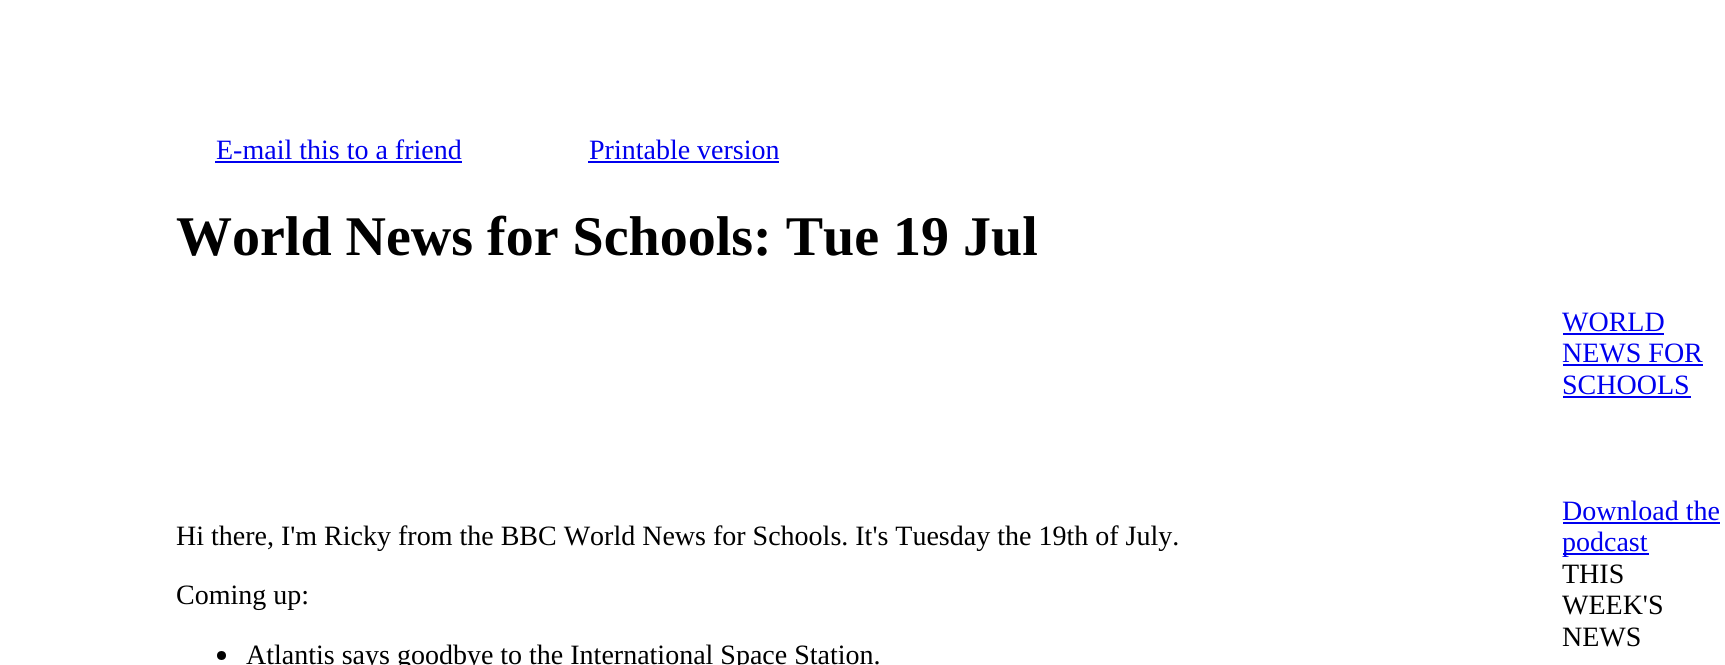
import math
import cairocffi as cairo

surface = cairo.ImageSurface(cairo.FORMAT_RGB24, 1725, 665)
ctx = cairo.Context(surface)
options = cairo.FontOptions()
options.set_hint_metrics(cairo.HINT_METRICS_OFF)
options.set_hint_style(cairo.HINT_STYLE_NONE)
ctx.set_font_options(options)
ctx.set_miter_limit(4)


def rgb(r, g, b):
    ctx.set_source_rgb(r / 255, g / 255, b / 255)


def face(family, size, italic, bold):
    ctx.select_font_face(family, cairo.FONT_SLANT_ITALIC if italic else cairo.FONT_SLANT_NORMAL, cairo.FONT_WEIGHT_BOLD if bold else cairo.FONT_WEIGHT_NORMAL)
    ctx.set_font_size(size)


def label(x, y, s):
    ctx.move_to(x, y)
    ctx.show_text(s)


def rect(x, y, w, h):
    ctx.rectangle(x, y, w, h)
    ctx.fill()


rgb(255, 255, 255)
ctx.paint()
face('Liberation Serif', 28, 0, 0)
rgb(0, 0, 238)
label(216, 159, 'E-mail this to a friend')
rect(215, 161, 247, 2)
label(589, 159, 'Printable version')
rect(588, 161, 191, 2)
face('Liberation Serif', 56, 0, 1)
rgb(0, 0, 0)
label(176, 255, 'World News for Schools: Tue 19 Jul')
face('Liberation Serif', 28, 0, 0)
label(176, 545, 'Hi there, I\'m Ricky from the BBC World News for Schools. It\'s Tuesday the 19th of July.')
label(176, 604, 'Coming up:')
ctx.new_path()
ctx.arc(221.5, 655.5, 4.5, 0, 2 * math.pi)
ctx.fill()
label(246, 664, 'Atlantis says goodbye to the International Space Station.')
rgb(0, 0, 238)
label(1562, 331, 'WORLD')
rect(1563, 333, 101, 2)
label(1562, 362, 'NEWS FOR')
rect(1563, 364, 140, 2)
label(1562, 394, 'SCHOOLS')
rect(1563, 396, 128, 2)
label(1562, 520, 'Download the')
rect(1563, 522, 157, 2)
rect(1563, 553, 86, 2)
label(1562, 551, 'podcast')
rgb(0, 0, 0)
label(1562, 583, 'THIS')
label(1562, 614, 'WEEK\'S')
label(1562, 646, 'NEWS')
surface.write_to_png('render.png')
